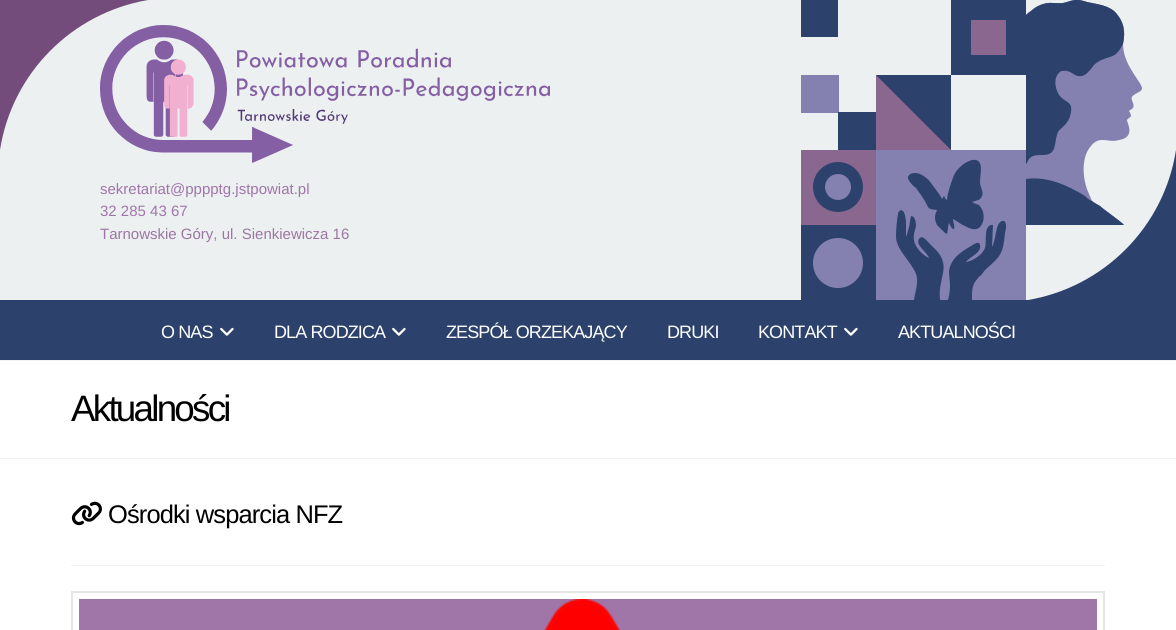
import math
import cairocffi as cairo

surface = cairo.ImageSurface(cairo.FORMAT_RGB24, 1176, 630)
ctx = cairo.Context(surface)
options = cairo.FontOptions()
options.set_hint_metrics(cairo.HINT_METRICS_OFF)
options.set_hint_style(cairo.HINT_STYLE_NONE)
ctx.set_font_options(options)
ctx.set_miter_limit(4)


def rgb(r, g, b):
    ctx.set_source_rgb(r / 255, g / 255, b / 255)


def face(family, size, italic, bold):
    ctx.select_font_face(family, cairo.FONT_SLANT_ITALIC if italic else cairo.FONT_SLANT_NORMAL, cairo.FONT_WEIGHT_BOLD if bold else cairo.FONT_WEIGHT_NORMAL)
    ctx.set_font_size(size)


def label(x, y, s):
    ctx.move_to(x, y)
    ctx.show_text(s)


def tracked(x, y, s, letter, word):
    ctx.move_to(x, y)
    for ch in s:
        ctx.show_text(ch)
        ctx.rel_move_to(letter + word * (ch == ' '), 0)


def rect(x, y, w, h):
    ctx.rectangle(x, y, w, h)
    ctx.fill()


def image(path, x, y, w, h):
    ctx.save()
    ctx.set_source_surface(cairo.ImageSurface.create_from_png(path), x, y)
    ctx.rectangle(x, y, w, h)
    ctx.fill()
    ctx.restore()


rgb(255, 255, 255)
ctx.paint()
rgb(236, 240, 241)
rect(0, 0, 1176, 300)
rgb(44, 66, 109)
ctx.set_fill_rule(cairo.FILL_RULE_EVEN_ODD)
ctx.new_path()
ctx.move_to(1101, 300)
ctx.line_to(1028, 300)
ctx.curve_to(1104, 287, 1164, 227, 1176, 150)
ctx.line_to(1176, 300)
ctx.close_path()
ctx.fill()
image('image0.png', 801, 0, 341, 300)
rgb(115, 76, 123)
ctx.new_path()
ctx.move_to(75, 0)
ctx.line_to(148, 0)
ctx.curve_to(72, 13, 12, 73, 0, 150)
ctx.line_to(0, 0)
ctx.close_path()
ctx.fill()
image('image1.png', 100, 25, 450, 138)
face('Liberation Sans', 15, 0, 0)
rgb(160, 118, 169)
label(100, 194, 'sekretariat@pppptg.jstpowiat.pl')
label(100, 216, '32 285 43 67')
rgb(156, 119, 161)
label(100, 239, 'Tarnowskie Góry, ul. Sienkiewicza 16')
rgb(44, 66, 109)
rect(0, 300, 1176, 60)
face('Liberation Sans', 18, 0, 0)
rgb(255, 255, 255)
tracked(161, 338, 'O NAS', -0.9, 0)
image('image2.png', 220, 327, 14, 9)
tracked(274, 338, 'DLA RODZICA', -0.9, 0)
image('image2.png', 392, 327, 14, 9)
tracked(446, 338, 'ZESPÓŁ ORZEKAJĄCY', -0.9, 0)
tracked(667, 338, 'DRUKI', -0.9, 0)
tracked(758, 338, 'KONTAKT', -0.9, 0)
image('image2.png', 844, 327, 14, 9)
tracked(898, 338, 'AKTUALNOŚCI', -0.9, 0)
rgb(242, 242, 242)
rect(0, 360, 1176, 1)
rect(0, 458, 1176, 1)
face('Liberation Sans', 36.75, 0, 0)
rgb(0, 0, 0)
tracked(71, 421, 'Aktualności', -2.75, 0)
rgb(242, 242, 242)
rect(71, 565, 1034, 1)
image('image3.png', 71, 501, 31, 25)
face('Liberation Sans', 25.5, 0, 0)
rgb(0, 0, 0)
tracked(108, 523, 'Ośrodki wsparcia NFZ', -0.9, 0)
ctx.rectangle(72, 592, 1032, 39)
rgb(229, 229, 229)
ctx.stroke()
rgb(160, 118, 169)
rect(79, 599, 1018, 31)
image('image4.png', 543, 599, 78, 31)
surface.write_to_png('render.png')
